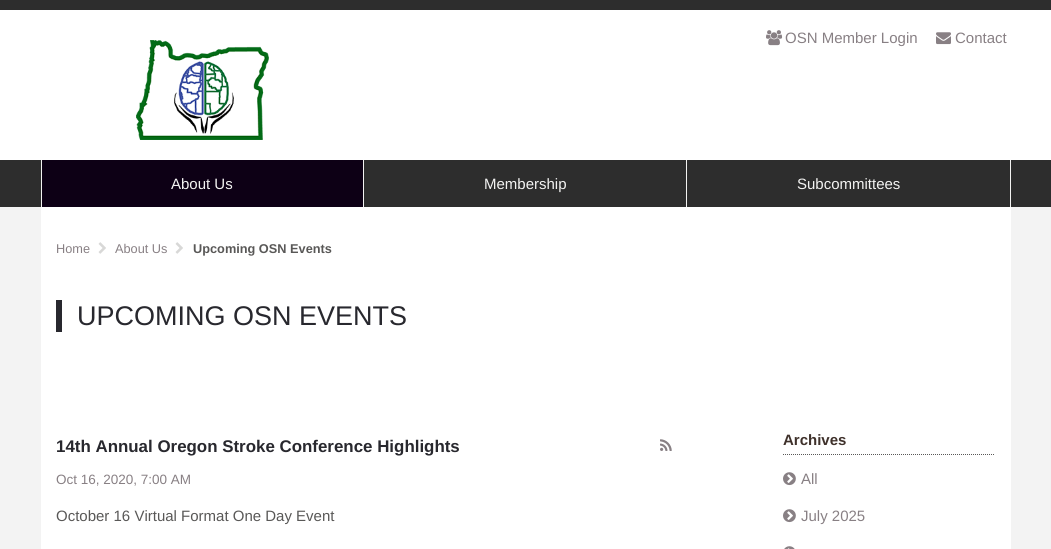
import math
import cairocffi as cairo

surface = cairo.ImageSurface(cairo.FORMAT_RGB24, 1051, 549)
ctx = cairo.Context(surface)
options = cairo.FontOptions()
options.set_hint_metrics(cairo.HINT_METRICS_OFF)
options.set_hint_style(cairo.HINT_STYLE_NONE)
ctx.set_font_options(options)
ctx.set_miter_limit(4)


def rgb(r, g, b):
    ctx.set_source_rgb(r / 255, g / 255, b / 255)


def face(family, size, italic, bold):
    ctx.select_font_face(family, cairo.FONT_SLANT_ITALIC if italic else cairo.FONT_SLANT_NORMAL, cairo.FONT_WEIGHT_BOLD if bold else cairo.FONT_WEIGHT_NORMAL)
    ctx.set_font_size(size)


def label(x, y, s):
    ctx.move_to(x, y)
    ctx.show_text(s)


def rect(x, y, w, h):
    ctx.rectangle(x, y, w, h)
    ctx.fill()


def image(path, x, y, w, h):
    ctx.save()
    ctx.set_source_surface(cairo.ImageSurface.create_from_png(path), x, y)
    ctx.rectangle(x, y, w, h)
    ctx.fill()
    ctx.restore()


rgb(255, 255, 255)
ctx.paint()
rgb(45, 45, 45)
rect(0, 0, 1051, 10)
image('image0.png', 136, 40, 133, 100)
image('image1.png', 766, 30, 17, 16)
face('Liberation Sans', 15, 0, 0)
rgb(136, 128, 132)
label(785, 43, 'OSN Member Login')
image('image2.png', 936, 32, 15, 13)
label(955, 43, 'Contact')
rgb(45, 45, 45)
rect(0, 160, 1051, 47)
rgb(243, 243, 242)
rect(363, 160, 1, 47)
rect(41, 160, 1, 47)
rgb(13, 0, 21)
rect(42, 160, 321, 47)
rgb(243, 243, 242)
label(171, 189, 'About Us')
rect(686, 160, 1, 47)
label(484, 189, 'Membership')
rect(1010, 160, 1, 47)
label(797, 189, 'Subcommittees')
rgb(243, 243, 243)
rect(0, 207, 1051, 342)
rgb(255, 255, 255)
rect(41, 207, 970, 342)
face('Liberation Sans', 12.75, 0, 0)
rgb(136, 128, 132)
label(56, 253, 'Home')
image('image3.png', 98, 242, 8, 12)
label(115, 253, 'About Us')
image('image3.png', 175, 242, 8, 12)
face('Liberation Sans', 12.75, 0, 1)
rgb(89, 88, 87)
label(193, 253, 'Upcoming OSN Events')
rgb(40, 40, 46)
rect(56, 300, 6, 32)
face('Liberation Sans', 27, 0, 0)
label(77, 325, 'UPCOMING OSN EVENTS')
face('Liberation Sans', 16.9, 0, 1)
label(56, 452, '14th Annual Oregon Stroke Conference Highlights')
face('Liberation Sans', 13.5, 0, 0)
rgb(136, 128, 132)
label(56, 484, 'Oct 16, 2020, 7:00 AM')
face('Liberation Sans', 15, 0, 0)
rgb(89, 88, 87)
label(56, 521, 'October 16 Virtual Format One Day Event')
image('image4.png', 660, 439, 12, 12)
ctx.new_path()
ctx.move_to(783, 454.5)
ctx.line_to(995, 454.5)
ctx.set_line_width(1)
ctx.set_dash([1, 1])
ctx.stroke()
face('Liberation Sans', 15, 0, 1)
rgb(63, 49, 43)
label(783, 445, 'Archives')
image('image5.png', 783, 472, 13, 14)
face('Liberation Sans', 15, 0, 0)
rgb(136, 128, 132)
label(801, 484, 'All')
image('image5.png', 783, 509, 13, 14)
label(801, 521, 'July 2025')
image('image6.png', 784, 546, 11, 3)
surface.write_to_png('render.png')
